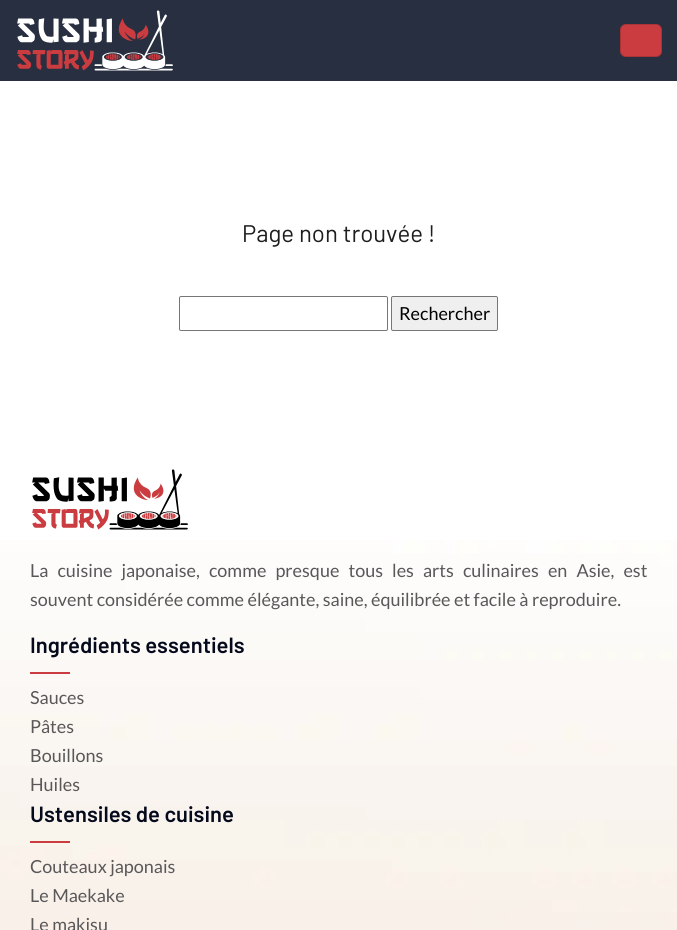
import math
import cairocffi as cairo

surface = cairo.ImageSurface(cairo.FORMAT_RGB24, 677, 930)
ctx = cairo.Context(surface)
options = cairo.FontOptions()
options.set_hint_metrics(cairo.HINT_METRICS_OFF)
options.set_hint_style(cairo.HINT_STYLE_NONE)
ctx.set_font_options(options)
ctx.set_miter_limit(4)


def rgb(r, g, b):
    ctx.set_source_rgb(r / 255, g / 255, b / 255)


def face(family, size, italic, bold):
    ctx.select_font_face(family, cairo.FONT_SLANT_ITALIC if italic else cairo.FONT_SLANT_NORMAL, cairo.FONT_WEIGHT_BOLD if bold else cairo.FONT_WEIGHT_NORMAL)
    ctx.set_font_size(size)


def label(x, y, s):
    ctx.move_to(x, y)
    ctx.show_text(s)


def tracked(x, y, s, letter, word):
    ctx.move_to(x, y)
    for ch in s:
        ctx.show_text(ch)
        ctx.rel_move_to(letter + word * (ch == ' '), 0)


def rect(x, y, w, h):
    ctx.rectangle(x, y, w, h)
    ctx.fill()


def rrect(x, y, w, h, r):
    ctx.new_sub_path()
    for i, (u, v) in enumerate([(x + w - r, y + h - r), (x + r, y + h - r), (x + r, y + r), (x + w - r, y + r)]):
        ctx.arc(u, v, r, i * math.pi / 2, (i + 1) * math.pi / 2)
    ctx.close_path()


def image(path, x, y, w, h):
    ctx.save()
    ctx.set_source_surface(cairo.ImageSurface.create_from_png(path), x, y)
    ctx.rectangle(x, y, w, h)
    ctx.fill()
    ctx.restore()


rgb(255, 255, 255)
ctx.paint()
rgb(40, 47, 64)
rect(0, 0, 677, 81)
image('image0.png', 17, 10, 156, 61)
rgb(202, 60, 63)
rrect(620, 24, 42, 33, 6)
ctx.fill()
rrect(620.5, 24.5, 41, 32, 5.5)
ctx.set_source_rgba(0, 0, 0, 0.15)
ctx.set_line_width(1)
ctx.stroke()
face('Barlow', 24, 0, 0)
rgb(30, 30, 30)
label(242, 242, 'Page non trouvée !')
rrect(179.5, 296.5, 208, 34, 1.5)
rgb(118, 118, 118)
ctx.stroke()
rgb(239, 239, 239)
rrect(391.5, 296.5, 106, 34, 1.5)
ctx.fill_preserve()
rgb(118, 118, 118)
ctx.stroke()
face('Lato', 18, 0, 0)
rgb(0, 0, 0)
label(399, 320, 'Rechercher')
image('image1.png', 0, 540, 677, 390)
image('image2.png', 32, 469, 156, 61)
rgb(89, 87, 88)
tracked(30, 577, 'La cuisine japonaise, comme presque tous les arts culinaires en Asie, est', 0, 5.6)
label(30, 606, 'souvent considérée comme élégante, saine, équilibrée et facile à reproduire.')
face('Barlow SemiBold', 22, 0, 0)
rgb(4, 10, 28)
label(30, 653, 'Ingrédients essentiels')
rgb(202, 60, 63)
rect(30, 672, 40, 2)
face('Lato', 18, 0, 0)
rgb(89, 87, 88)
label(30, 704, 'Sauces')
label(30, 733, 'Pâtes')
label(30, 762, 'Bouillons')
label(30, 791, 'Huiles')
face('Barlow SemiBold', 22, 0, 0)
rgb(4, 10, 28)
label(30, 822, 'Ustensiles de cuisine')
rgb(202, 60, 63)
rect(30, 841, 40, 2)
face('Lato', 18, 0, 0)
rgb(89, 87, 88)
label(30, 873, 'Couteaux japonais')
label(30, 902, 'Le Maekake')
label(30, 931, 'Le makisu')
surface.write_to_png('render.png')
